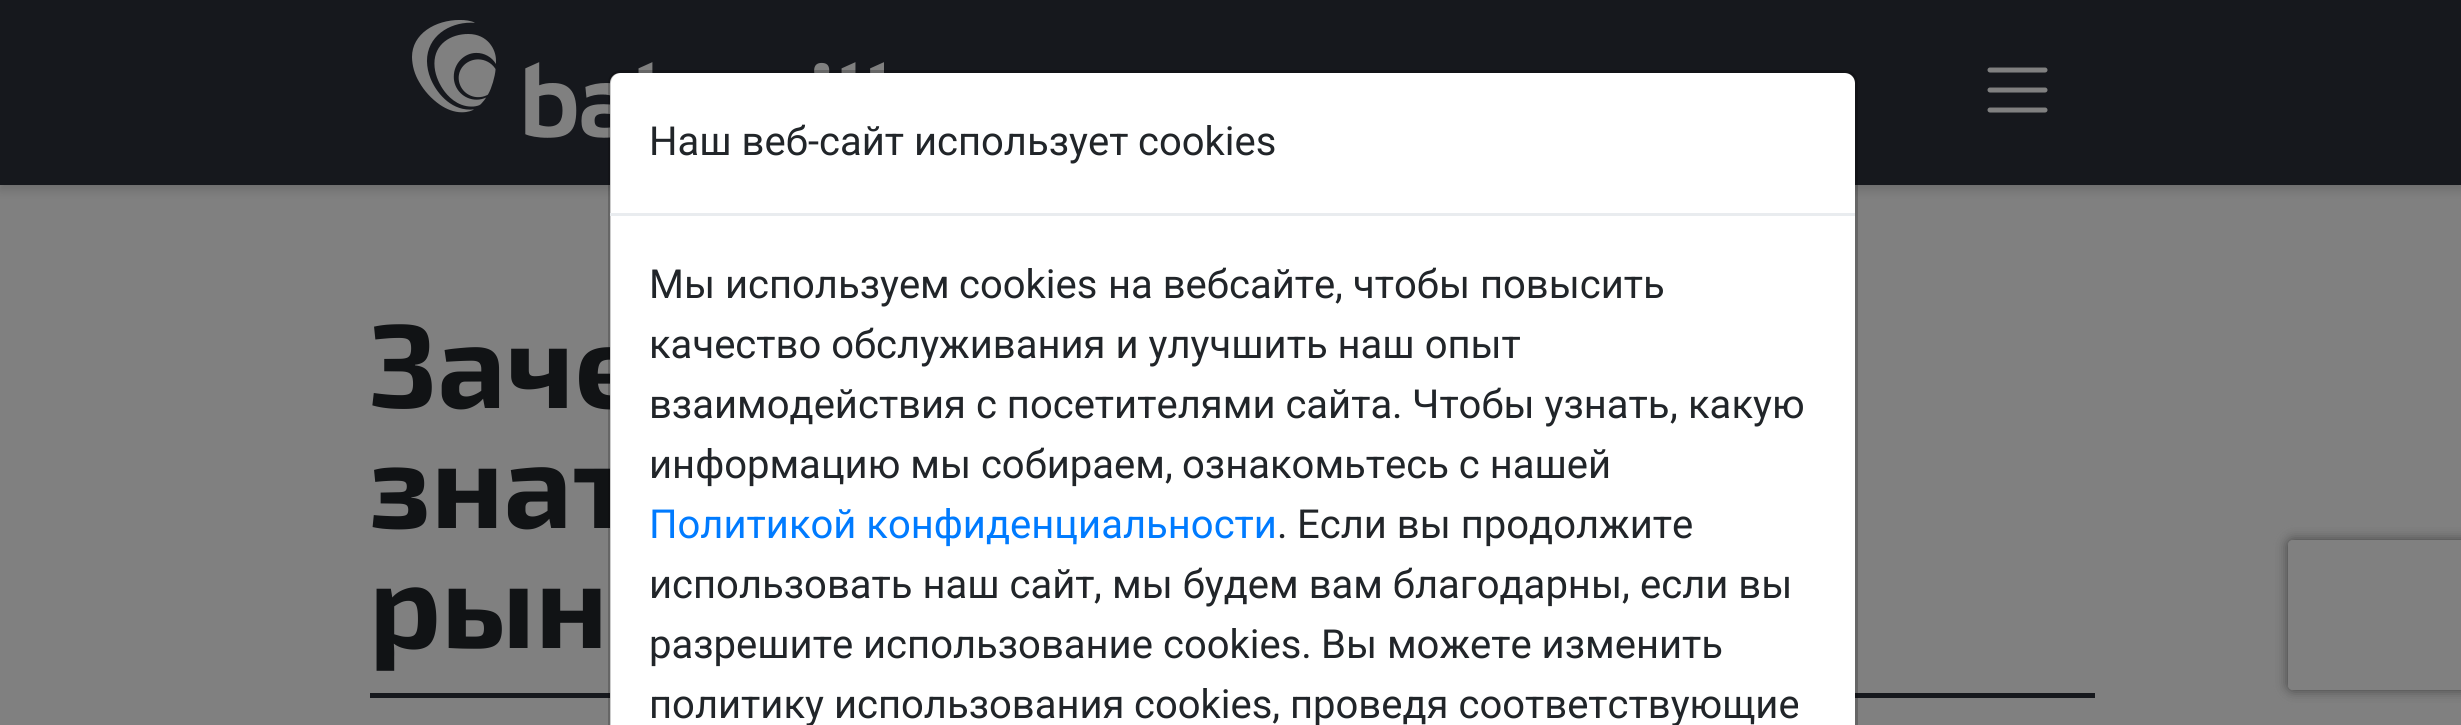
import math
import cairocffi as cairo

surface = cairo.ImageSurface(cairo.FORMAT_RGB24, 2461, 725)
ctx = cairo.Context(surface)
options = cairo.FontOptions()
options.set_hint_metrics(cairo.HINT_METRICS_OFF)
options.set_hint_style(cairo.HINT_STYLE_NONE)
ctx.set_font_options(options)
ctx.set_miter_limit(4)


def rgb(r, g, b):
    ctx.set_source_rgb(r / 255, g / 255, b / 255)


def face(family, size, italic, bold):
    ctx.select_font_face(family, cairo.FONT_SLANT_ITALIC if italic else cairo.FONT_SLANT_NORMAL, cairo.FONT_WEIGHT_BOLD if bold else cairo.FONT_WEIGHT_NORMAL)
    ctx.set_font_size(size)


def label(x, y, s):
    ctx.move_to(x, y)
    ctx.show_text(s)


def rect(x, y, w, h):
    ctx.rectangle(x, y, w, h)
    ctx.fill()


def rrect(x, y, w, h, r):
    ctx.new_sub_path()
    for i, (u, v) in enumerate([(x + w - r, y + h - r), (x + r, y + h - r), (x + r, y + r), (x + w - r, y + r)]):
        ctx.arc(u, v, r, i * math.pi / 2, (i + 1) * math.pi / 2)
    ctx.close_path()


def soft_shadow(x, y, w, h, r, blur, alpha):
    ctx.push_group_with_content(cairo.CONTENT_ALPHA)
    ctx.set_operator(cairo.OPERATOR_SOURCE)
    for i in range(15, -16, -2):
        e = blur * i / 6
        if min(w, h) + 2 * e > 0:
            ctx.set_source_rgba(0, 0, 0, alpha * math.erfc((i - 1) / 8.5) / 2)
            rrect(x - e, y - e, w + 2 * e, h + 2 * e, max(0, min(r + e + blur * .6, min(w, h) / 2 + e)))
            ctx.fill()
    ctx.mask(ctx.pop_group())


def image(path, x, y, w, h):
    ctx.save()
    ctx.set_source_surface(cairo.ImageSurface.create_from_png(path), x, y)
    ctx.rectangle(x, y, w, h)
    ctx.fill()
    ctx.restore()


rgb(128, 128, 128)
ctx.paint()
rgb(0, 0, 0)
soft_shadow(0, 5, 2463, 185, 0, 5, 0.15)
rgb(22, 24, 29)
rect(0, 0, 2461, 185)
image('image0.png', 412, 20, 472, 118)
ctx.new_path()
ctx.move_to(1990, 70)
ctx.line_to(2045, 70)
ctx.move_to(1990, 90)
ctx.line_to(2045, 90)
ctx.move_to(1990, 110)
ctx.line_to(2045, 110)
rgb(128, 128, 128)
ctx.set_line_width(5)
ctx.set_line_cap(cairo.LINE_CAP_ROUND)
ctx.stroke()
face('Exo 2', 120, 0, 1)
rgb(17, 19, 21)
label(369, 408, 'Заче')
label(369, 528, 'знат')
label(369, 648, 'рын')
rgb(22, 24, 29)
rect(370, 693, 1725, 5)
rgb(255, 255, 255)
ctx.new_path()
ctx.move_to(620, 73)
ctx.line_to(1845, 73)
ctx.curve_to(1850.5, 73, 1855, 77.5, 1855, 83)
ctx.line_to(1855, 725)
ctx.line_to(610, 725)
ctx.line_to(610, 83)
ctx.curve_to(610, 77.5, 614.5, 73, 620, 73)
ctx.close_path()
ctx.fill()
rrect(609.5, 71.5, 1247, 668, 11.5)
ctx.set_source_rgba(0, 0, 0, 0.2)
ctx.set_line_width(3)
ctx.set_line_cap(cairo.LINE_CAP_BUTT)
ctx.stroke()
rgb(233, 236, 239)
rect(610, 213, 1245, 3)
face('Roboto', 40, 0, 0)
rgb(33, 37, 41)
label(649, 155, 'Наш веб')
face('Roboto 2', 40, 0, 0)
label(808, 155, '-')
face('Roboto', 40, 0, 0)
label(819, 155, 'сайт использует')
face('Roboto 2', 40, 0, 0)
label(1138, 155, 'cookies')
face('Roboto', 40, 0, 0)
label(649, 298, 'Мы используем')
face('Roboto 2', 40, 0, 0)
label(959, 298, 'cookies')
face('Roboto', 40, 0, 0)
label(1108, 298, 'на вебсайте')
face('Roboto 2', 40, 0, 0)
label(1335, 298, ',')
face('Roboto', 40, 0, 0)
label(1353, 298, 'чтобы повысить')
label(649, 358, 'качество обслуживания и улучшить наш опыт')
label(649, 418, 'взаимодействия с посетителями сайта')
face('Roboto 2', 40, 0, 0)
label(1392, 418, '.')
face('Roboto', 40, 0, 0)
label(1412, 418, 'Чтобы узнать')
face('Roboto 2', 40, 0, 0)
label(1670, 418, ',')
face('Roboto', 40, 0, 0)
label(1688, 418, 'какую')
label(649, 478, 'информацию мы собираем')
face('Roboto 2', 40, 0, 0)
label(1165, 478, ',')
face('Roboto', 40, 0, 0)
label(1182, 478, 'ознакомьтесь с нашей')
rgb(0, 123, 255)
label(649, 538, 'Политикой конфиденциальности')
face('Roboto 2', 40, 0, 0)
rgb(33, 37, 41)
label(1277, 538, '.')
face('Roboto', 40, 0, 0)
label(1297, 538, 'Если вы продолжите')
label(649, 598, 'использовать наш сайт')
face('Roboto 2', 40, 0, 0)
label(1094, 598, ',')
face('Roboto', 40, 0, 0)
label(1112, 598, 'мы будем вам благодарны')
face('Roboto 2', 40, 0, 0)
label(1622, 598, ',')
face('Roboto', 40, 0, 0)
label(1640, 598, 'если вы')
label(649, 658, 'разрешите использование')
face('Roboto 2', 40, 0, 0)
label(1163, 658, 'cookies.')
face('Roboto', 40, 0, 0)
label(1321, 658, 'Вы можете изменить')
label(649, 718, 'политику использования')
face('Roboto 2', 40, 0, 0)
label(1134, 718, 'cookies,')
face('Roboto', 40, 0, 0)
label(1290, 718, 'проведя соответствующие')
ctx.save()
ctx.set_fill_rule(cairo.FILL_RULE_EVEN_ODD)
ctx.new_path()
ctx.move_to(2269, 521)
ctx.line_to(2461, 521)
ctx.line_to(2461, 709)
ctx.line_to(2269, 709)
ctx.close_path()
ctx.move_to(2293, 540)
ctx.line_to(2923, 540)
ctx.curve_to(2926, 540, 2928, 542, 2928, 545)
ctx.line_to(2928, 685)
ctx.curve_to(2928, 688, 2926, 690, 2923, 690)
ctx.line_to(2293, 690)
ctx.curve_to(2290, 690, 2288, 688, 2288, 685)
ctx.line_to(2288, 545)
ctx.curve_to(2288, 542, 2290, 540, 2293, 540)
ctx.close_path()
ctx.clip()
rgb(64, 64, 64)
soft_shadow(2288, 540, 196, 150, 5, 6, 1)
ctx.restore()
surface.write_to_png('render.png')
